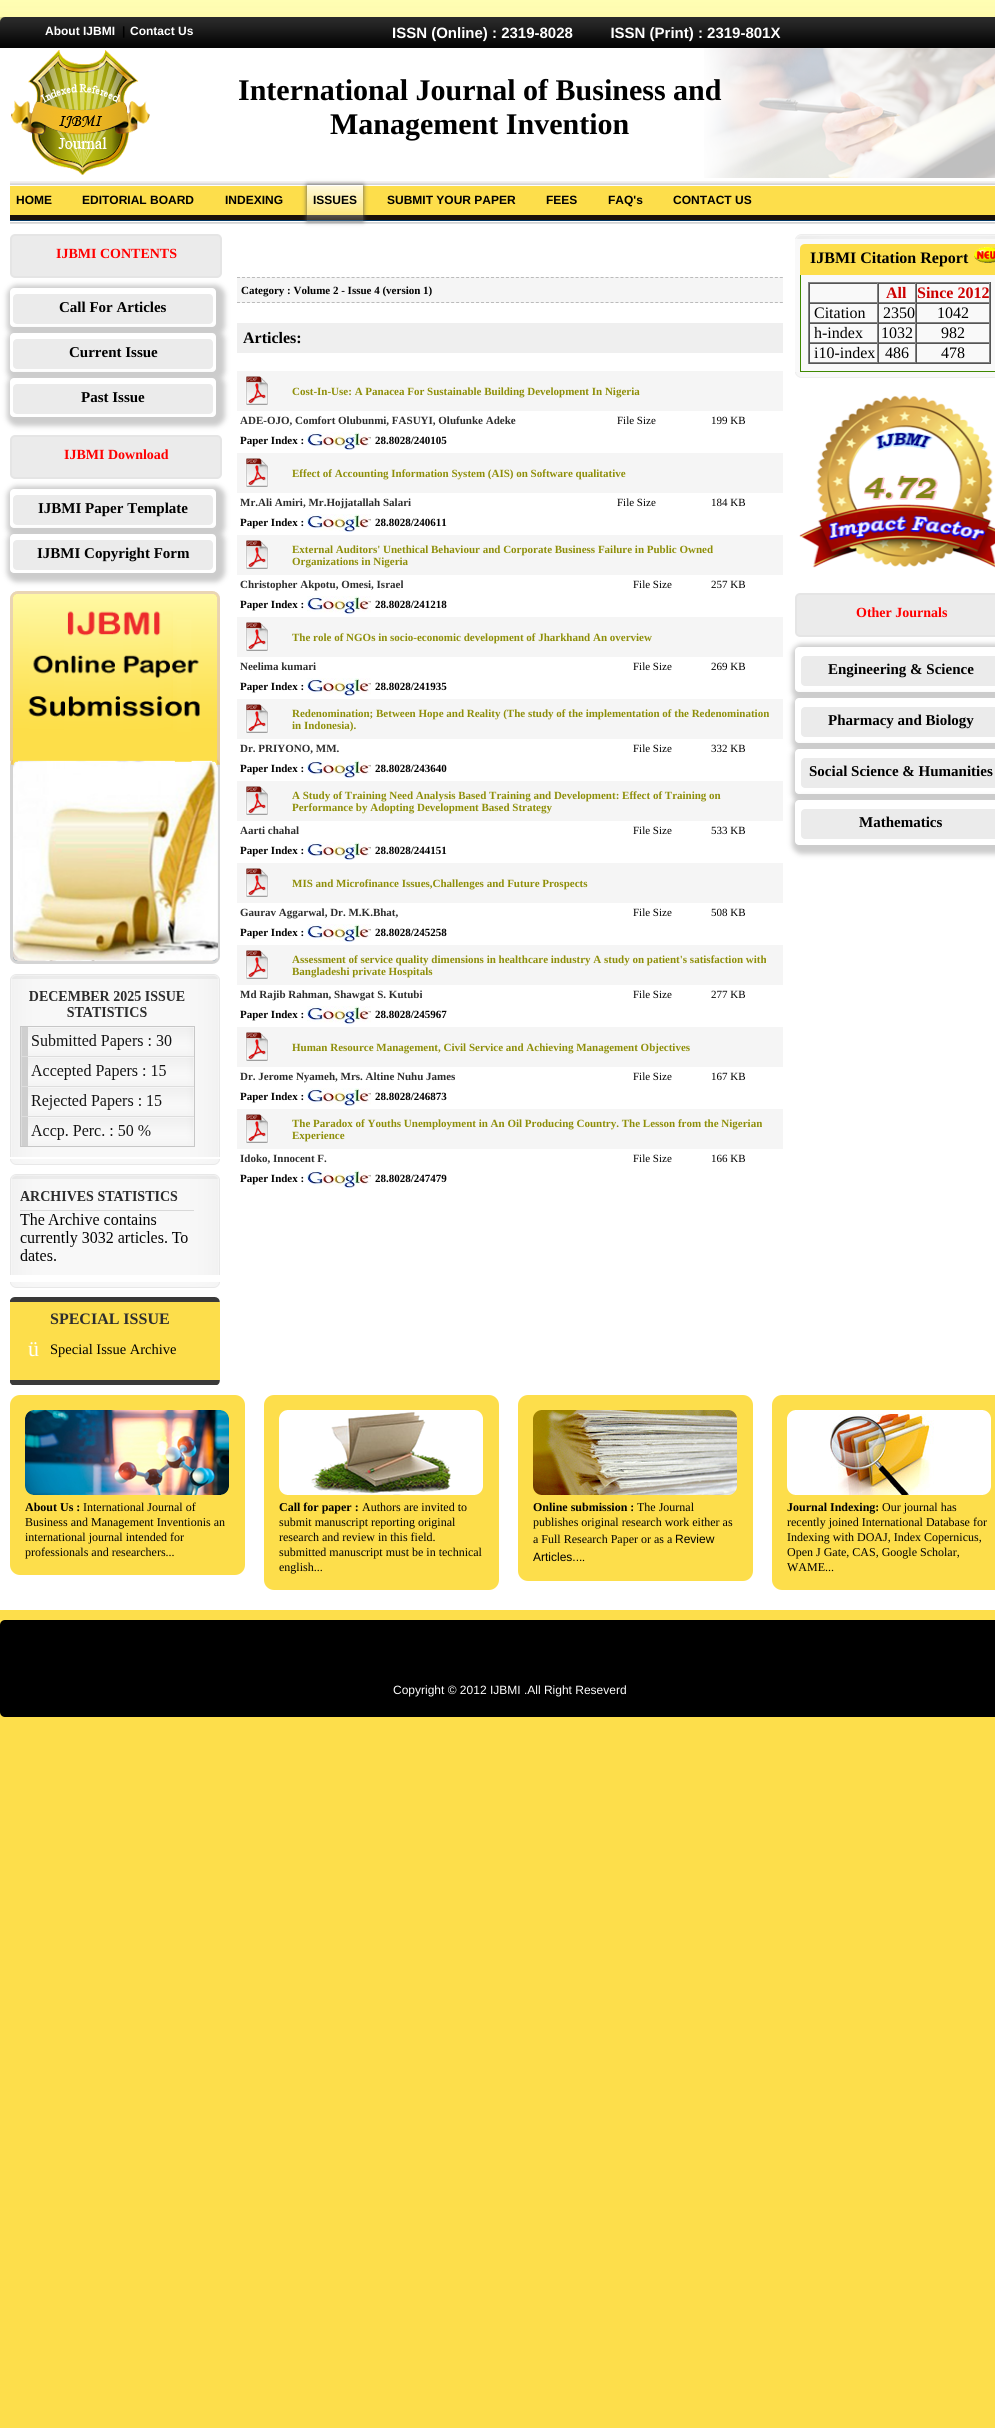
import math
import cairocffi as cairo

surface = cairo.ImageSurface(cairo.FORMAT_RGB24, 995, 2428)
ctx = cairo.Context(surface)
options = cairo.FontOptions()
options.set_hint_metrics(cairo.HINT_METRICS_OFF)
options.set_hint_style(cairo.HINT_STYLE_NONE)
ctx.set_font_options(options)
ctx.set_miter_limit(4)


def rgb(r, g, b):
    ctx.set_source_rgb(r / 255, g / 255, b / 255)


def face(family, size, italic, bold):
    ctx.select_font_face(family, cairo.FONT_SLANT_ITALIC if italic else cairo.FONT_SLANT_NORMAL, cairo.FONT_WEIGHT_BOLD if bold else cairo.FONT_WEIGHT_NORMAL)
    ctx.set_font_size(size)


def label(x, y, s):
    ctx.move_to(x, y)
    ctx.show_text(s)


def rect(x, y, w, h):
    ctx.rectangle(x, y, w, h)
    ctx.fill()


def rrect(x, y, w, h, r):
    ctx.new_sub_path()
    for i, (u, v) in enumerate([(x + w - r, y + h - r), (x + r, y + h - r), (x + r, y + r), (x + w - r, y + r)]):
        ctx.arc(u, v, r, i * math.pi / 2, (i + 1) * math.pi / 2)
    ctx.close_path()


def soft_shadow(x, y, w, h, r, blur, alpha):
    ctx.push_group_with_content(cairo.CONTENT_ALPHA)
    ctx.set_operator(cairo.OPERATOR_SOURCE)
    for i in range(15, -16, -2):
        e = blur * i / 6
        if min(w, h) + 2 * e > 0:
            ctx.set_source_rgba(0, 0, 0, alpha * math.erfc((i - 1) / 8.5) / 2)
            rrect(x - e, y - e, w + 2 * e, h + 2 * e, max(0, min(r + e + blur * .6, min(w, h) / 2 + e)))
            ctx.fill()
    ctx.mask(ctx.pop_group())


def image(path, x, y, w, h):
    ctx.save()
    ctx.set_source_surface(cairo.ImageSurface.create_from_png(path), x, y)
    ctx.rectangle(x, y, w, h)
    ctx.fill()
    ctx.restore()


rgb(253, 222, 75)
ctx.paint()
image('image0.png', 0, 0, 995, 22)
image('image1.png', 0, 17, 995, 31)
face('Liberation Sans', 12, 0, 1)
rgb(255, 255, 255)
label(45, 35, 'About IJBMI')
rgb(0, 0, 0)
label(122, 35, '|')
rgb(255, 255, 255)
label(130, 35, 'Contact Us')
face('Liberation Sans', 15, 0, 1)
label(392, 38, 'ISSN (Online) : 2319-8028         ISSN (Print) : 2319-801X')
rect(0, 48, 995, 1562)
image('image2.png', 704, 48, 291, 130)
image('image3.png', 11, 50, 139, 125)
face('Liberation Serif', 30, 0, 1)
rgb(0, 0, 0)
label(238, 100, 'International Journal of Business and')
label(330, 134, 'Management Invention')
image('image4.png', 10, 181, 985, 43)
rgb(253, 222, 75)
rect(10, 186, 985, 29)
face('Liberation Sans', 12, 0, 1)
rgb(0, 0, 0)
label(16, 204, 'HOME')
label(82, 204, 'EDITORIAL BOARD')
label(225, 204, 'INDEXING')
rgb(26, 17, 9)
rect(10, 215, 985, 5)
ctx.save()
ctx.set_fill_rule(cairo.FILL_RULE_EVEN_ODD)
ctx.new_path()
ctx.move_to(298, 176)
ctx.line_to(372, 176)
ctx.line_to(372, 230)
ctx.line_to(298, 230)
ctx.close_path()
ctx.move_to(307, 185)
ctx.line_to(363, 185)
ctx.line_to(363, 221)
ctx.line_to(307, 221)
ctx.close_path()
ctx.clip()
rgb(89, 89, 89)
soft_shadow(307, 185, 56, 36, 0, 2.5, 1)
ctx.restore()
gradient = cairo.LinearGradient(335, 185, 335, 221)
gradient.add_color_stop_rgba(0, 1, 1, 1, 0.82)
gradient.add_color_stop_rgba(1, 1, 1, 1, 0.16)
ctx.set_source(gradient)
rect(307, 186, 56, 35)
rgb(0, 0, 0)
label(313, 204, 'ISSUES')
label(387, 204, 'SUBMIT YOUR PAPER')
label(546, 204, 'FEES')
label(608, 204, 'FAQ\'s')
label(673, 204, 'CONTACT US')
rgb(235, 235, 235)
rrect(11, 235, 210, 42, 4)
ctx.fill_preserve()
rgb(229, 229, 229)
ctx.stroke()
face('Liberation Serif', 14, 0, 1)
rgb(255, 0, 0)
label(56, 258, 'IJBMI CONTENTS')
rgb(204, 204, 204)
soft_shadow(7, 285, 218, 51, 10, 2.5, 1)
rgb(255, 255, 255)
rrect(10, 288, 206, 39, 4)
ctx.fill()
rgb(235, 235, 235)
rrect(13, 294, 200, 30, 4)
ctx.fill()
face('Liberation Serif', 15, 0, 1)
rgb(0, 0, 0)
label(59, 312, 'Call For Articles')
rgb(204, 204, 204)
soft_shadow(7, 330, 218, 51, 10, 2.5, 1)
rgb(255, 255, 255)
rrect(10, 333, 206, 39, 4)
ctx.fill()
rgb(235, 235, 235)
rrect(13, 339, 200, 30, 4)
ctx.fill()
rgb(0, 0, 0)
label(69, 357, 'Current Issue')
rgb(204, 204, 204)
soft_shadow(7, 375, 218, 51, 10, 2.5, 1)
rgb(255, 255, 255)
rrect(10, 378, 206, 39, 4)
ctx.fill()
rgb(235, 235, 235)
rrect(13, 384, 200, 30, 4)
ctx.fill()
rgb(0, 0, 0)
label(81, 402, 'Past Issue')
rgb(235, 235, 235)
rrect(11, 436, 210, 42, 4)
ctx.fill_preserve()
rgb(229, 229, 229)
ctx.stroke()
face('Liberation Serif', 14, 0, 1)
rgb(255, 0, 0)
label(64, 459, 'IJBMI Download')
rgb(204, 204, 204)
soft_shadow(7, 486, 218, 51, 10, 2.5, 1)
rgb(255, 255, 255)
rrect(10, 489, 206, 39, 4)
ctx.fill()
rgb(235, 235, 235)
rrect(13, 495, 200, 30, 4)
ctx.fill()
face('Liberation Serif', 15, 0, 1)
rgb(0, 0, 0)
label(38, 513, 'IJBMI Paper Template')
rgb(204, 204, 204)
soft_shadow(7, 531, 218, 51, 10, 2.5, 1)
rgb(255, 255, 255)
rrect(10, 534, 206, 39, 4)
ctx.fill()
rgb(235, 235, 235)
rrect(13, 540, 200, 30, 4)
ctx.fill()
rgb(0, 0, 0)
label(37, 558, 'IJBMI Copyright Form')
image('image5.png', 10, 591, 210, 373)
image('image6.png', 10, 974, 210, 5)
image('image7.png', 10, 979, 210, 178)
image('image8.png', 10, 1159, 210, 6)
image('image6.png', 10, 1174, 210, 5)
image('image9.png', 10, 1179, 210, 96)
image('image8.png', 10, 1282, 210, 6)
image('image10.png', 10, 1297, 210, 5)
rgb(253, 222, 75)
rect(10, 1302, 210, 78)
face('Liberation Serif', 16, 0, 1)
rgb(46, 46, 46)
label(50, 1324, 'SPECIAL ISSUE')
face('Liberation Serif', 22, 0, 0)
rgb(255, 255, 255)
label(28, 1356, 'ü')
face('Liberation Serif', 14.5, 0, 0)
rgb(0, 0, 0)
label(50, 1354, 'Special Issue Archive')
image('image11.png', 10, 1380, 210, 5)
rgb(245, 245, 245)
rect(237, 277, 546, 26)
ctx.new_path()
ctx.move_to(237, 277.5)
ctx.line_to(783, 277.5)
rgb(187, 187, 187)
ctx.set_line_width(1)
ctx.set_dash([3, 1.98])
ctx.stroke()
ctx.new_path()
ctx.move_to(237, 302.5)
ctx.line_to(783, 302.5)
ctx.stroke()
face('Liberation Serif', 11, 0, 1)
rgb(0, 0, 0)
label(241, 294, 'Category : Volume 2 - Issue 4 (version 1)')
rgb(239, 239, 239)
rect(237, 323, 546, 30)
face('Liberation Serif', 16, 0, 1)
rgb(0, 0, 0)
label(243, 343, 'Articles:')
rgb(245, 245, 245)
rect(237, 371, 546, 40)
image('image12.png', 245, 376, 24, 29)
face('Liberation Serif', 11, 0, 1)
rgb(143, 143, 10)
label(292, 395, 'Cost-In-Use: A Panacea For Sustainable Building Development In Nigeria')
rgb(46, 46, 46)
label(240, 424, 'ADE-OJO, Comfort Olubunmi, FASUYI, Olufunke Adeke')
face('Liberation Serif', 11, 0, 0)
rgb(0, 0, 0)
label(617, 424, 'File Size')
label(711, 424, '199 KB')
face('Liberation Serif', 11, 0, 1)
label(240, 444, 'Paper Index :')
image('image13.png', 307, 432, 64, 18)
label(375, 444, '28.8028/240105')
rgb(245, 245, 245)
rect(237, 453, 546, 40)
image('image12.png', 245, 458, 24, 29)
rgb(143, 143, 10)
label(292, 477, 'Effect of Accounting Information System (AIS) on Software qualitative')
rgb(46, 46, 46)
label(240, 506, 'Mr.Ali Amiri, Mr.Hojjatallah Salari')
face('Liberation Serif', 11, 0, 0)
rgb(0, 0, 0)
label(617, 506, 'File Size')
label(711, 506, '184 KB')
face('Liberation Serif', 11, 0, 1)
label(240, 526, 'Paper Index :')
image('image13.png', 307, 514, 64, 18)
label(375, 526, '28.8028/240611')
rgb(245, 245, 245)
rect(237, 535, 546, 40)
image('image12.png', 245, 540, 24, 29)
rgb(143, 143, 10)
label(292, 553, 'External Auditors\' Unethical Behaviour and Corporate Business Failure in Public Owned')
label(292, 565, 'Organizations in Nigeria')
rgb(46, 46, 46)
label(240, 588, 'Christopher Akpotu, Omesi, Israel')
face('Liberation Serif', 11, 0, 0)
rgb(0, 0, 0)
label(633, 588, 'File Size')
label(711, 588, '257 KB')
face('Liberation Serif', 11, 0, 1)
label(240, 608, 'Paper Index :')
image('image13.png', 307, 596, 64, 18)
label(375, 608, '28.8028/241218')
rgb(245, 245, 245)
rect(237, 617, 546, 40)
image('image12.png', 245, 622, 24, 29)
rgb(143, 143, 10)
label(292, 641, 'The role of NGOs in socio-economic development of Jharkhand An overview')
rgb(46, 46, 46)
label(240, 670, 'Neelima kumari')
face('Liberation Serif', 11, 0, 0)
rgb(0, 0, 0)
label(633, 670, 'File Size')
label(711, 670, '269 KB')
face('Liberation Serif', 11, 0, 1)
label(240, 690, 'Paper Index :')
image('image13.png', 307, 678, 64, 18)
label(375, 690, '28.8028/241935')
rgb(245, 245, 245)
rect(237, 699, 546, 40)
image('image12.png', 245, 704, 24, 29)
rgb(143, 143, 10)
label(292, 717, 'Redenomination; Between Hope and Reality (The study of the implementation of the Redenomination')
label(292, 729, 'in Indonesia).')
rgb(46, 46, 46)
label(240, 752, 'Dr. PRIYONO, MM.')
face('Liberation Serif', 11, 0, 0)
rgb(0, 0, 0)
label(633, 752, 'File Size')
label(711, 752, '332 KB')
face('Liberation Serif', 11, 0, 1)
label(240, 772, 'Paper Index :')
image('image13.png', 307, 760, 64, 18)
label(375, 772, '28.8028/243640')
rgb(245, 245, 245)
rect(237, 781, 546, 40)
image('image12.png', 245, 786, 24, 29)
rgb(143, 143, 10)
label(292, 799, 'A Study of Training Need Analysis Based Training and Development: Effect of Training on')
label(292, 811, 'Performance by Adopting Development Based Strategy')
rgb(46, 46, 46)
label(240, 834, 'Aarti chahal')
face('Liberation Serif', 11, 0, 0)
rgb(0, 0, 0)
label(633, 834, 'File Size')
label(711, 834, '533 KB')
face('Liberation Serif', 11, 0, 1)
label(240, 854, 'Paper Index :')
image('image13.png', 307, 842, 64, 18)
label(375, 854, '28.8028/244151')
rgb(245, 245, 245)
rect(237, 863, 546, 40)
image('image12.png', 245, 868, 24, 29)
rgb(143, 143, 10)
label(292, 887, 'MIS and Microfinance Issues,Challenges and Future Prospects')
rgb(46, 46, 46)
label(240, 916, 'Gaurav Aggarwal, Dr. M.K.Bhat,')
face('Liberation Serif', 11, 0, 0)
rgb(0, 0, 0)
label(633, 916, 'File Size')
label(711, 916, '508 KB')
face('Liberation Serif', 11, 0, 1)
label(240, 936, 'Paper Index :')
image('image13.png', 307, 924, 64, 18)
label(375, 936, '28.8028/245258')
rgb(245, 245, 245)
rect(237, 945, 546, 40)
image('image12.png', 245, 950, 24, 29)
rgb(143, 143, 10)
label(292, 963, 'Assessment of service quality dimensions in healthcare industry A study on patient\'s satisfaction with')
label(292, 975, 'Bangladeshi private Hospitals')
rgb(46, 46, 46)
label(240, 998, 'Md Rajib Rahman, Shawgat S. Kutubi')
face('Liberation Serif', 11, 0, 0)
rgb(0, 0, 0)
label(633, 998, 'File Size')
label(711, 998, '277 KB')
face('Liberation Serif', 11, 0, 1)
label(240, 1018, 'Paper Index :')
image('image13.png', 307, 1006, 64, 18)
label(375, 1018, '28.8028/245967')
rgb(245, 245, 245)
rect(237, 1027, 546, 40)
image('image12.png', 245, 1032, 24, 29)
rgb(143, 143, 10)
label(292, 1051, 'Human Resource Management, Civil Service and Achieving Management Objectives')
rgb(46, 46, 46)
label(240, 1080, 'Dr. Jerome Nyameh, Mrs. Altine Nuhu James')
face('Liberation Serif', 11, 0, 0)
rgb(0, 0, 0)
label(633, 1080, 'File Size')
label(711, 1080, '167 KB')
face('Liberation Serif', 11, 0, 1)
label(240, 1100, 'Paper Index :')
image('image13.png', 307, 1088, 64, 18)
label(375, 1100, '28.8028/246873')
rgb(245, 245, 245)
rect(237, 1109, 546, 40)
image('image12.png', 245, 1114, 24, 29)
rgb(143, 143, 10)
label(292, 1127, 'The Paradox of Youths Unemployment in An Oil Producing Country. The Lesson from the Nigerian')
label(292, 1139, 'Experience')
rgb(46, 46, 46)
label(240, 1162, 'Idoko, Innocent F.')
face('Liberation Serif', 11, 0, 0)
rgb(0, 0, 0)
label(633, 1162, 'File Size')
label(711, 1162, '166 KB')
face('Liberation Serif', 11, 0, 1)
label(240, 1182, 'Paper Index :')
image('image13.png', 307, 1170, 64, 18)
label(375, 1182, '28.8028/247479')
image('image14.png', 795, 234, 200, 5)
rgb(249, 249, 249)
rect(795, 239, 200, 133)
rgb(253, 222, 75)
ctx.new_path()
ctx.move_to(805, 244)
ctx.line_to(995, 244)
ctx.curve_to(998, 244, 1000, 246, 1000, 249)
ctx.line_to(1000, 275)
ctx.line_to(800, 275)
ctx.line_to(800, 249)
ctx.curve_to(800, 246, 802, 244, 805, 244)
ctx.close_path()
ctx.fill()
face('Liberation Serif', 16, 0, 1)
rgb(0, 0, 0)
label(810, 263, 'IJBMI Citation Report')
image('image15.png', 974, 247, 21, 16)
rgb(63, 137, 0)
rect(800, 371, 195, 1)
rect(800, 275, 1, 97)
rgb(128, 128, 128)
rect(808, 282, 183, 1)
rgb(85, 85, 85)
rect(990, 282, 1, 82)
rect(808, 363, 183, 1)
rgb(128, 128, 128)
rect(808, 282, 1, 82)
rgb(85, 85, 85)
rect(809, 283, 181, 1)
rgb(128, 128, 128)
rect(877, 283, 1, 20)
rect(809, 302, 69, 1)
rgb(85, 85, 85)
rect(809, 283, 1, 20)
rgb(128, 128, 128)
rect(915, 283, 1, 20)
rect(878, 302, 38, 1)
rgb(85, 85, 85)
rect(878, 283, 1, 20)
rgb(204, 0, 0)
label(886, 298, 'All')
rgb(128, 128, 128)
rect(989, 283, 1, 20)
rect(916, 302, 74, 1)
rgb(85, 85, 85)
rect(916, 283, 1, 20)
rgb(204, 0, 0)
label(917, 298, 'Since 2012')
rgb(85, 85, 85)
rect(809, 303, 181, 1)
rgb(128, 128, 128)
rect(877, 303, 1, 20)
rect(809, 322, 69, 1)
rgb(85, 85, 85)
rect(809, 303, 1, 20)
face('Liberation Serif', 16, 0, 0)
rgb(0, 0, 0)
label(814, 318, 'Citation')
rgb(128, 128, 128)
rect(915, 303, 1, 20)
rect(878, 322, 38, 1)
rgb(85, 85, 85)
rect(878, 303, 1, 20)
rgb(0, 0, 0)
label(883, 318, '2350')
rgb(128, 128, 128)
rect(989, 303, 1, 20)
rect(916, 322, 74, 1)
rgb(85, 85, 85)
rect(916, 303, 1, 20)
rgb(0, 0, 0)
label(937, 318, '1042')
rgb(85, 85, 85)
rect(809, 323, 181, 1)
rgb(128, 128, 128)
rect(877, 323, 1, 20)
rect(809, 342, 69, 1)
rgb(85, 85, 85)
rect(809, 323, 1, 20)
rgb(0, 0, 0)
label(814, 338, 'h-index')
rgb(128, 128, 128)
rect(915, 323, 1, 20)
rect(878, 342, 38, 1)
rgb(85, 85, 85)
rect(878, 323, 1, 20)
rgb(0, 0, 0)
label(881, 338, '1032')
rgb(128, 128, 128)
rect(989, 323, 1, 20)
rect(916, 342, 74, 1)
rgb(85, 85, 85)
rect(916, 323, 1, 20)
rgb(0, 0, 0)
label(941, 338, '982')
rgb(85, 85, 85)
rect(809, 343, 181, 1)
rgb(128, 128, 128)
rect(877, 343, 1, 20)
rect(809, 362, 69, 1)
rgb(85, 85, 85)
rect(809, 343, 1, 20)
rgb(0, 0, 0)
label(814, 358, 'i10-index')
rgb(128, 128, 128)
rect(915, 343, 1, 20)
rect(878, 362, 38, 1)
rgb(85, 85, 85)
rect(878, 343, 1, 20)
rgb(0, 0, 0)
label(885, 358, '486')
rgb(128, 128, 128)
rect(989, 343, 1, 20)
rect(916, 362, 74, 1)
rgb(85, 85, 85)
rect(916, 343, 1, 20)
rgb(0, 0, 0)
label(941, 358, '478')
image('image16.png', 795, 372, 200, 6)
image('image17.png', 799, 395, 196, 173)
rgb(235, 235, 235)
rrect(796, 594, 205, 42, 4)
ctx.fill_preserve()
rgb(229, 229, 229)
ctx.set_line_width(2)
ctx.set_dash([])
ctx.stroke()
face('Liberation Serif', 14, 0, 1)
rgb(255, 0, 0)
label(856, 617, 'Other Journals')
rgb(204, 204, 204)
soft_shadow(792, 644, 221, 57, 10, 2.5, 1)
rgb(255, 255, 255)
rrect(795, 647, 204, 45, 4)
ctx.fill()
rgb(235, 235, 235)
rrect(801, 656, 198, 30, 4)
ctx.fill()
face('Liberation Serif', 15, 0, 1)
rgb(0, 0, 0)
label(828, 674, 'Engineering & Science')
rgb(204, 204, 204)
soft_shadow(792, 695, 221, 57, 10, 2.5, 1)
rgb(255, 255, 255)
rrect(795, 698, 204, 45, 4)
ctx.fill()
rgb(235, 235, 235)
rrect(801, 707, 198, 30, 4)
ctx.fill()
rgb(0, 0, 0)
label(828, 725, 'Pharmacy and Biology')
rgb(204, 204, 204)
soft_shadow(792, 746, 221, 57, 10, 2.5, 1)
rgb(255, 255, 255)
rrect(795, 749, 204, 45, 4)
ctx.fill()
rgb(235, 235, 235)
rrect(801, 758, 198, 30, 4)
ctx.fill()
rgb(0, 0, 0)
label(809, 776, 'Social Science & Humanities')
rgb(204, 204, 204)
soft_shadow(792, 797, 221, 57, 10, 2.5, 1)
rgb(255, 255, 255)
rrect(795, 800, 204, 45, 4)
ctx.fill()
rgb(235, 235, 235)
rrect(801, 809, 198, 30, 4)
ctx.fill()
rgb(0, 0, 0)
label(859, 827, 'Mathematics')
rgb(253, 222, 75)
rrect(10, 1395, 235, 180, 10)
ctx.fill()
image('image18.png', 25, 1410, 204, 85)
face('Liberation Serif', 12, 0, 1)
rgb(0, 0, 0)
label(25, 1511, 'About Us :')
face('Liberation Serif', 12, 0, 0)
label(83, 1511, 'International Journal of')
label(25, 1526, 'Business and Management Inventionis an')
label(25, 1541, 'international journal intended for')
label(25, 1556, 'professionals and researchers...')
rgb(253, 222, 75)
rrect(264, 1395, 235, 195, 10)
ctx.fill()
image('image19.png', 279, 1410, 204, 85)
face('Liberation Serif', 12, 0, 1)
rgb(0, 0, 0)
label(279, 1511, 'Call for paper :')
face('Liberation Serif', 12, 0, 0)
label(362, 1511, 'Authors are invited to')
label(279, 1526, 'submit manuscript reporting original')
label(279, 1541, 'research and review in this field.')
label(279, 1556, 'submitted manuscript must be in technical')
label(279, 1571, 'english...')
rgb(253, 222, 75)
rrect(518, 1395, 235, 186, 10)
ctx.fill()
image('image20.png', 533, 1410, 204, 85)
face('Liberation Serif', 12, 0, 1)
rgb(0, 0, 0)
label(533, 1511, 'Online submission :')
face('Liberation Serif', 12, 0, 0)
label(637, 1511, 'The Journal')
label(533, 1526, 'publishes original research work either as')
label(533, 1543, 'a Full Research Paper or as a')
face('Liberation Sans', 12, 0, 0)
label(675, 1543, 'Review')
label(533, 1561, 'Articles...')
face('Liberation Serif', 12, 0, 0)
label(582, 1561, '.')
rgb(253, 222, 75)
rrect(772, 1395, 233, 195, 10)
ctx.fill()
image('image21.png', 787, 1410, 204, 85)
face('Liberation Serif', 12, 0, 1)
rgb(0, 0, 0)
label(787, 1511, 'Journal Indexing:')
face('Liberation Serif', 12, 0, 0)
label(882, 1511, 'Our journal has')
label(787, 1526, 'recently joined International Database for')
label(787, 1541, 'Indexing with DOAJ, Index Copernicus,')
label(787, 1556, 'Open J Gate, CAS, Google Scholar,')
label(787, 1571, 'WAME...')
rrect(0, 1620, 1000, 97, 5)
ctx.fill()
face('Liberation Sans', 12, 0, 0)
rgb(255, 255, 255)
label(393, 1694, 'Copyright © 2012 IJBMI .All Right Reseverd')
surface.write_to_png('render.png')
